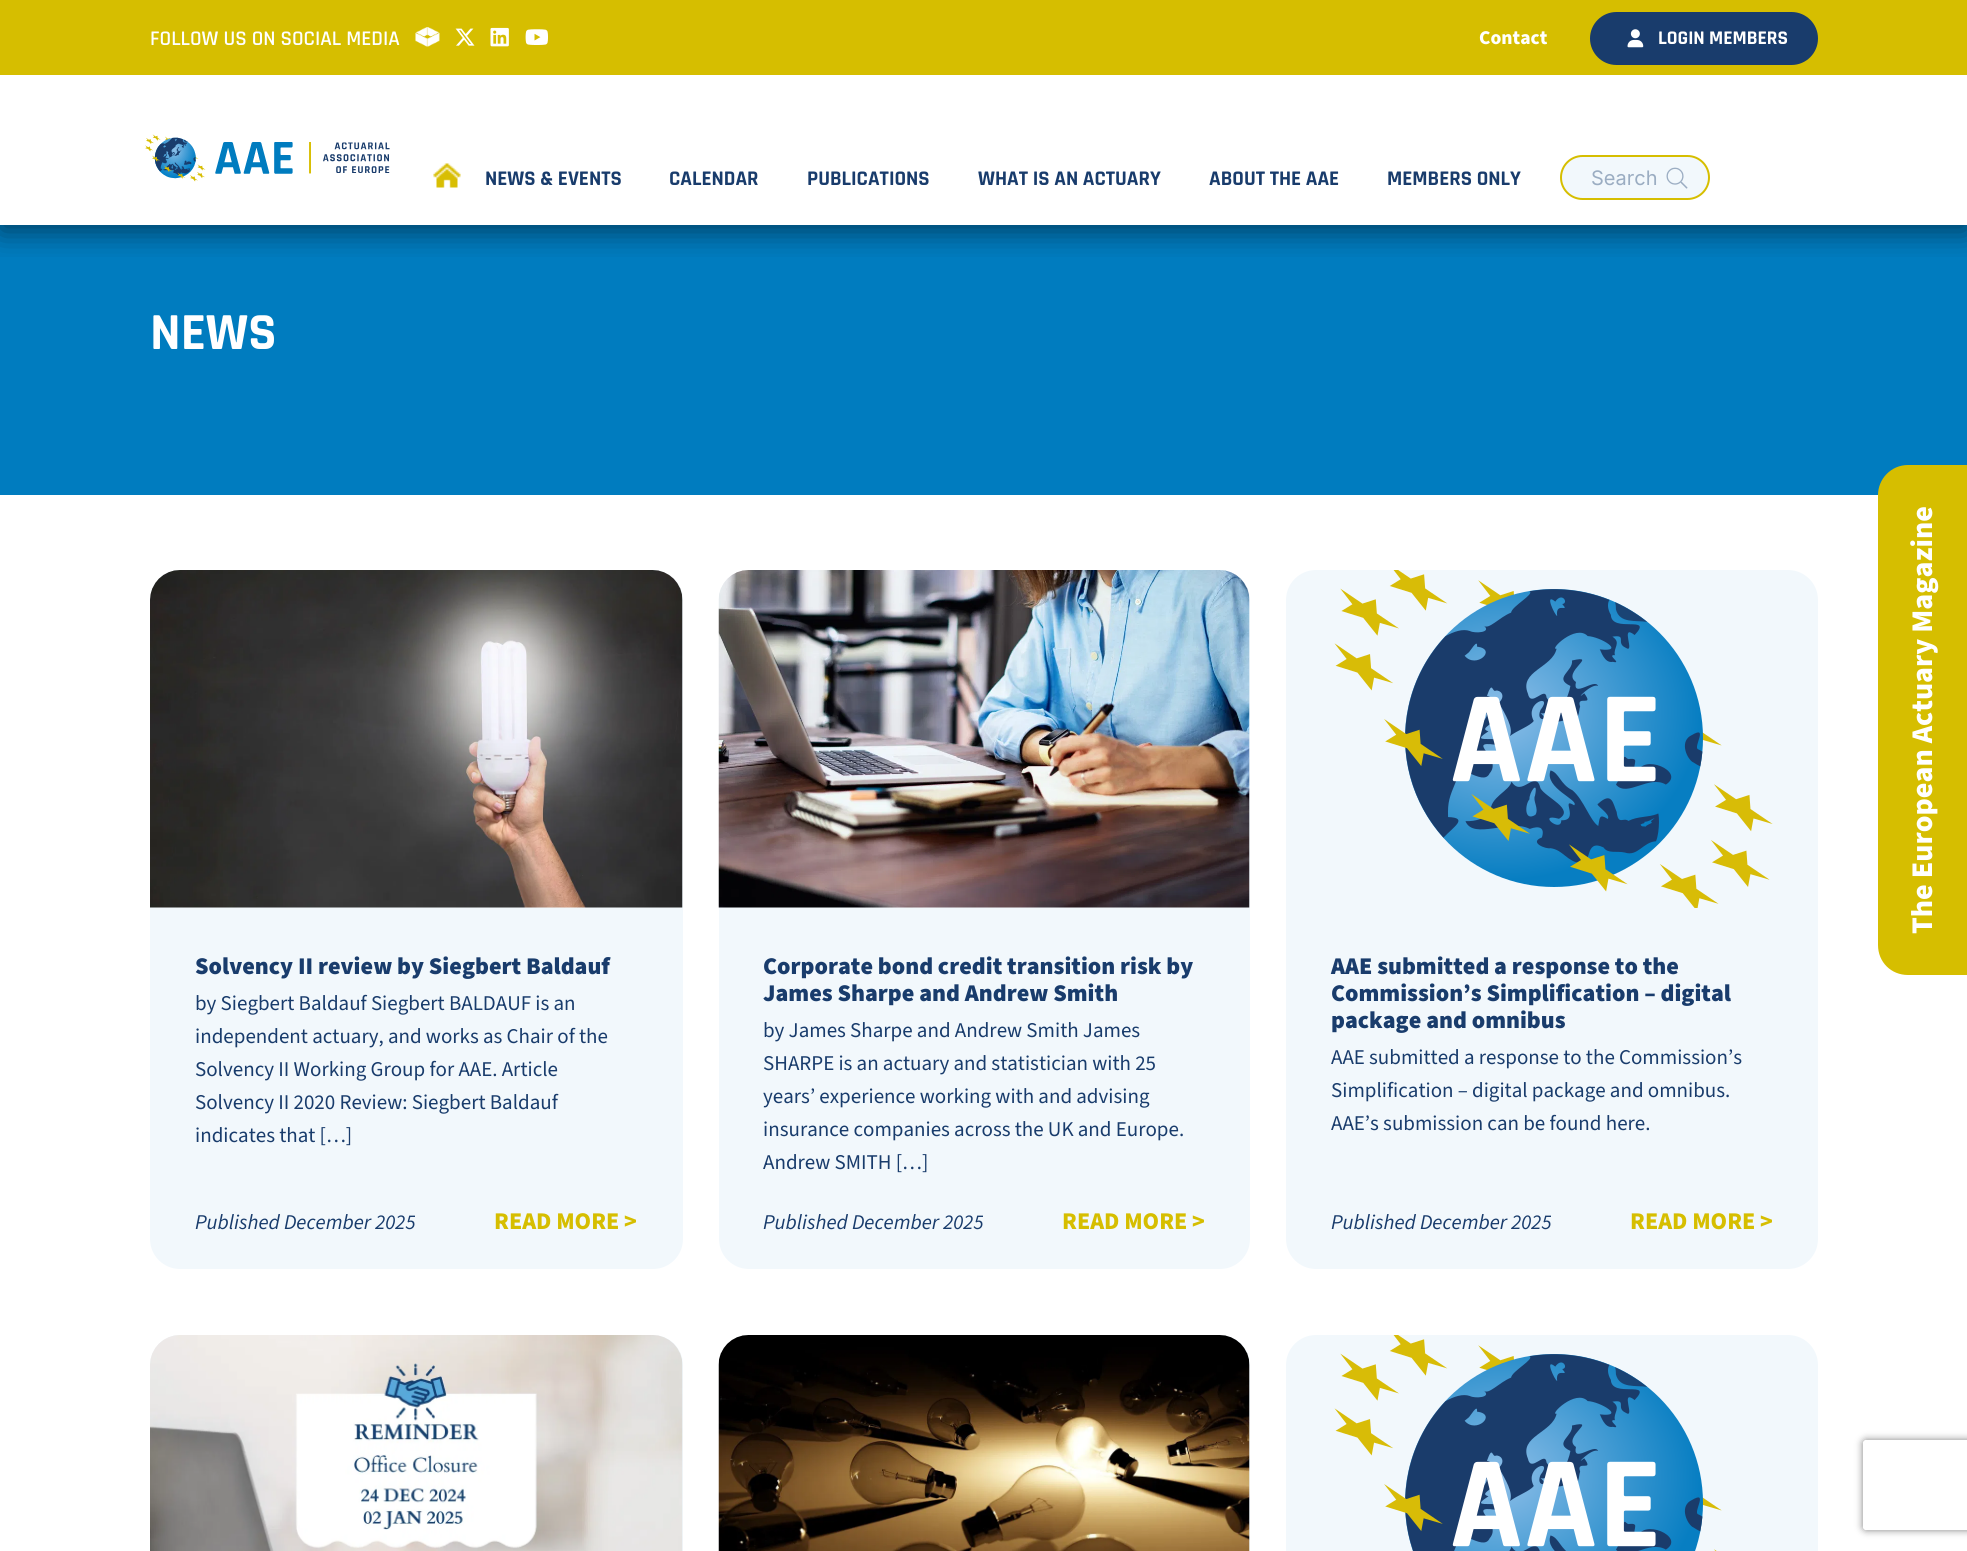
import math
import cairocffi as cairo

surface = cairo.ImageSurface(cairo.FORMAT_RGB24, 1967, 1551)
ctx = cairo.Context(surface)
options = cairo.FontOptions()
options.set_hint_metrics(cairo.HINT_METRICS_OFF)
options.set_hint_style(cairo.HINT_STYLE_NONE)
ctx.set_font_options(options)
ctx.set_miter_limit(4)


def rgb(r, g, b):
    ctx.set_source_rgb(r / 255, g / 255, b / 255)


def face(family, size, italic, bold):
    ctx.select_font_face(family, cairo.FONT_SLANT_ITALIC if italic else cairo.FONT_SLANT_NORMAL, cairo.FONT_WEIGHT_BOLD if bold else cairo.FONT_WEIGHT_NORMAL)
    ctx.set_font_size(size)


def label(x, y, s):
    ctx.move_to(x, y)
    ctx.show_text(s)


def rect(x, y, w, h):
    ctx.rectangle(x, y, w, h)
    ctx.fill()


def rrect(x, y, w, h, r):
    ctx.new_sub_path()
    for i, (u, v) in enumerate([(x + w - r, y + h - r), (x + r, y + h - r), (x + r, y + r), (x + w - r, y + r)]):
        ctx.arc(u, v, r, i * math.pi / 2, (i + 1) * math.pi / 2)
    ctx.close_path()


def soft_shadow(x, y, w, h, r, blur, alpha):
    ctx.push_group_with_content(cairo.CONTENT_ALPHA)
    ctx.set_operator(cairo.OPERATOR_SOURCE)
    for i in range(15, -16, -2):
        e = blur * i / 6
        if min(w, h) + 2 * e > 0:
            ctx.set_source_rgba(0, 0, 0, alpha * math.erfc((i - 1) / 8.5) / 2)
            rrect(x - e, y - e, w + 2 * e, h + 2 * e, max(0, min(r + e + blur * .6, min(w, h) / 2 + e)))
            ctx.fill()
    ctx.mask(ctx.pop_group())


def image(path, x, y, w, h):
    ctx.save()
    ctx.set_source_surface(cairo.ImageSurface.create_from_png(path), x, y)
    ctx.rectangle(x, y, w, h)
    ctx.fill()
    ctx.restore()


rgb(255, 255, 255)
ctx.paint()
rgb(0, 124, 191)
rect(0, 225, 1967, 270)
ctx.save()
ctx.rectangle(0, 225, 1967, 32)
ctx.clip()
rgb(0, 0, 0)
soft_shadow(0, 81, 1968, 150, 0, 15, 0.5)
ctx.restore()
rgb(214, 190, 0)
rect(0, 0, 1967, 75)
face('Rajdhani SemiBold', 21, 0, 0)
rgb(255, 255, 255)
label(150, 45, 'FOLLOW US ON SOCIAL MEDIA')
image('image0.png', 415, 27, 25, 20)
image('image1.png', 455, 28, 20, 18)
image('image2.png', 490, 27, 19, 20)
image('image3.png', 525, 29, 23, 16)
face('Source Sans 3 ExtraBold', 19.5, 0, 0)
label(1479, 44, 'Contact')
rgb(25, 60, 108)
rrect(1590, 12, 228, 53, 26.5)
ctx.fill()
image('image4.png', 1627, 29, 17, 19)
face('Rajdhani', 19.5, 0, 1)
rgb(255, 255, 255)
label(1658, 44, 'LOGIN MEMBERS')
image('image5.png', 145, 134, 245, 48)
image('image6.png', 433, 163, 28, 25)
face('Rajdhani', 21, 0, 1)
rgb(25, 60, 108)
label(485, 185, 'NEWS & EVENTS')
label(669, 185, 'CALENDAR')
label(807, 185, 'PUBLICATIONS')
label(978, 185, 'WHAT IS AN ACTUARY')
label(1209, 185, 'ABOUT THE AAE')
label(1387, 185, 'MEMBERS ONLY')
rgb(242, 248, 252)
rrect(1561, 156, 148, 43, 21.5)
ctx.fill_preserve()
rgb(214, 190, 0)
ctx.stroke()
face('Inter', 20, 0, 0)
rgb(155, 173, 194)
label(1591, 185, 'Search')
image('image7.png', 1666, 167, 22, 22)
face('Rajdhani', 52.5, 0, 1)
rgb(255, 255, 255)
label(150, 349, 'NEWS')
rgb(214, 190, 0)
ctx.new_path()
ctx.move_to(1878, 945)
ctx.line_to(1878, 495)
ctx.curve_to(1878, 479, 1891, 465, 1908, 465)
ctx.line_to(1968, 465)
ctx.line_to(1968, 975)
ctx.line_to(1908, 975)
ctx.curve_to(1891, 975, 1878, 962, 1878, 945)
ctx.close_path()
ctx.fill()
face('Source Sans 3 ExtraBold', 30, 0, 0)
rgb(255, 255, 255)
ctx.save()
ctx.translate(1932, 934)
ctx.rotate(-90 * math.pi / 180)
label(0, 0, 'The European Actuary Magazine')
ctx.restore()
rgb(242, 248, 252)
rrect(150, 570, 533, 699, 30)
ctx.fill()
image('image8.png', 150, 570, 533, 338)
face('Source Sans 3 Black', 24, 0, 0)
rgb(25, 60, 108)
label(195, 974, 'Solvency II review by Siegbert Baldauf')
face('Source Sans 3', 21, 0, 0)
label(195, 1010, 'by Siegbert Baldauf Siegbert BALDAUF is an')
label(195, 1043, 'independent actuary, and works as Chair of the')
label(195, 1076, 'Solvency II Working Group for AAE. Article')
label(195, 1109, 'Solvency II 2020 Review: Siegbert Baldauf')
label(195, 1142, 'indicates that […]')
face('Source Sans 3', 21, 1, 0)
label(195, 1229, 'Published December 2025')
face('Source Sans 3 ExtraBold', 24, 0, 0)
rgb(214, 190, 0)
label(494, 1229, 'READ MORE >')
rgb(242, 248, 252)
rrect(719, 570, 531, 699, 30)
ctx.fill()
image('image9.png', 718, 570, 532, 338)
face('Source Sans 3 Black', 24, 0, 0)
rgb(25, 60, 108)
label(763, 974, 'Corporate bond credit transition risk by')
label(763, 1001, 'James Sharpe and Andrew Smith')
face('Source Sans 3', 21, 0, 0)
label(763, 1037, 'by James Sharpe and Andrew Smith James')
label(763, 1070, 'SHARPE is an actuary and statistician with 25')
label(763, 1103, 'years’ experience working with and advising')
label(763, 1136, 'insurance companies across the UK and Europe.')
label(763, 1169, 'Andrew SMITH […]')
face('Source Sans 3', 21, 1, 0)
label(763, 1229, 'Published December 2025')
face('Source Sans 3 ExtraBold', 24, 0, 0)
rgb(214, 190, 0)
label(1062, 1229, 'READ MORE >')
rgb(242, 248, 252)
rrect(1286, 570, 532, 699, 30)
ctx.fill()
image('image10.png', 1334, 570, 439, 338)
face('Source Sans 3 Black', 24, 0, 0)
rgb(25, 60, 108)
label(1331, 974, 'AAE submitted a response to the')
label(1331, 1001, 'Commission’s Simplification – digital')
label(1331, 1028, 'package and omnibus')
face('Source Sans 3', 21, 0, 0)
label(1331, 1064, 'AAE submitted a response to the Commission’s')
label(1331, 1097, 'Simplification – digital package and omnibus.')
label(1331, 1130, 'AAE’s submission can be found here.')
face('Source Sans 3', 21, 1, 0)
label(1331, 1229, 'Published December 2025')
face('Source Sans 3 ExtraBold', 24, 0, 0)
rgb(214, 190, 0)
label(1630, 1229, 'READ MORE >')
rgb(242, 248, 252)
rrect(150, 1335, 533, 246, 30)
ctx.fill()
image('image11.png', 150, 1335, 533, 216)
rrect(719, 1335, 531, 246, 30)
ctx.fill()
image('image12.png', 718, 1335, 532, 216)
rrect(1286, 1335, 532, 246, 30)
ctx.fill()
image('image13.png', 1334, 1335, 388, 216)
ctx.save()
ctx.set_fill_rule(cairo.FILL_RULE_EVEN_ODD)
ctx.new_path()
ctx.move_to(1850, 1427)
ctx.line_to(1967, 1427)
ctx.line_to(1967, 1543)
ctx.line_to(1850, 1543)
ctx.close_path()
ctx.move_to(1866, 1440)
ctx.line_to(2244, 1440)
ctx.curve_to(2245.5, 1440, 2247, 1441.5, 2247, 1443)
ctx.line_to(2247, 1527)
ctx.curve_to(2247, 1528.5, 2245.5, 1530, 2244, 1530)
ctx.line_to(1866, 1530)
ctx.curve_to(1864.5, 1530, 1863, 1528.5, 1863, 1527)
ctx.line_to(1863, 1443)
ctx.curve_to(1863, 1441.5, 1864.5, 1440, 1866, 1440)
ctx.close_path()
ctx.clip()
rgb(128, 128, 128)
soft_shadow(1863, 1440, 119, 90, 3, 4, 1)
ctx.restore()
surface.write_to_png('render.png')
